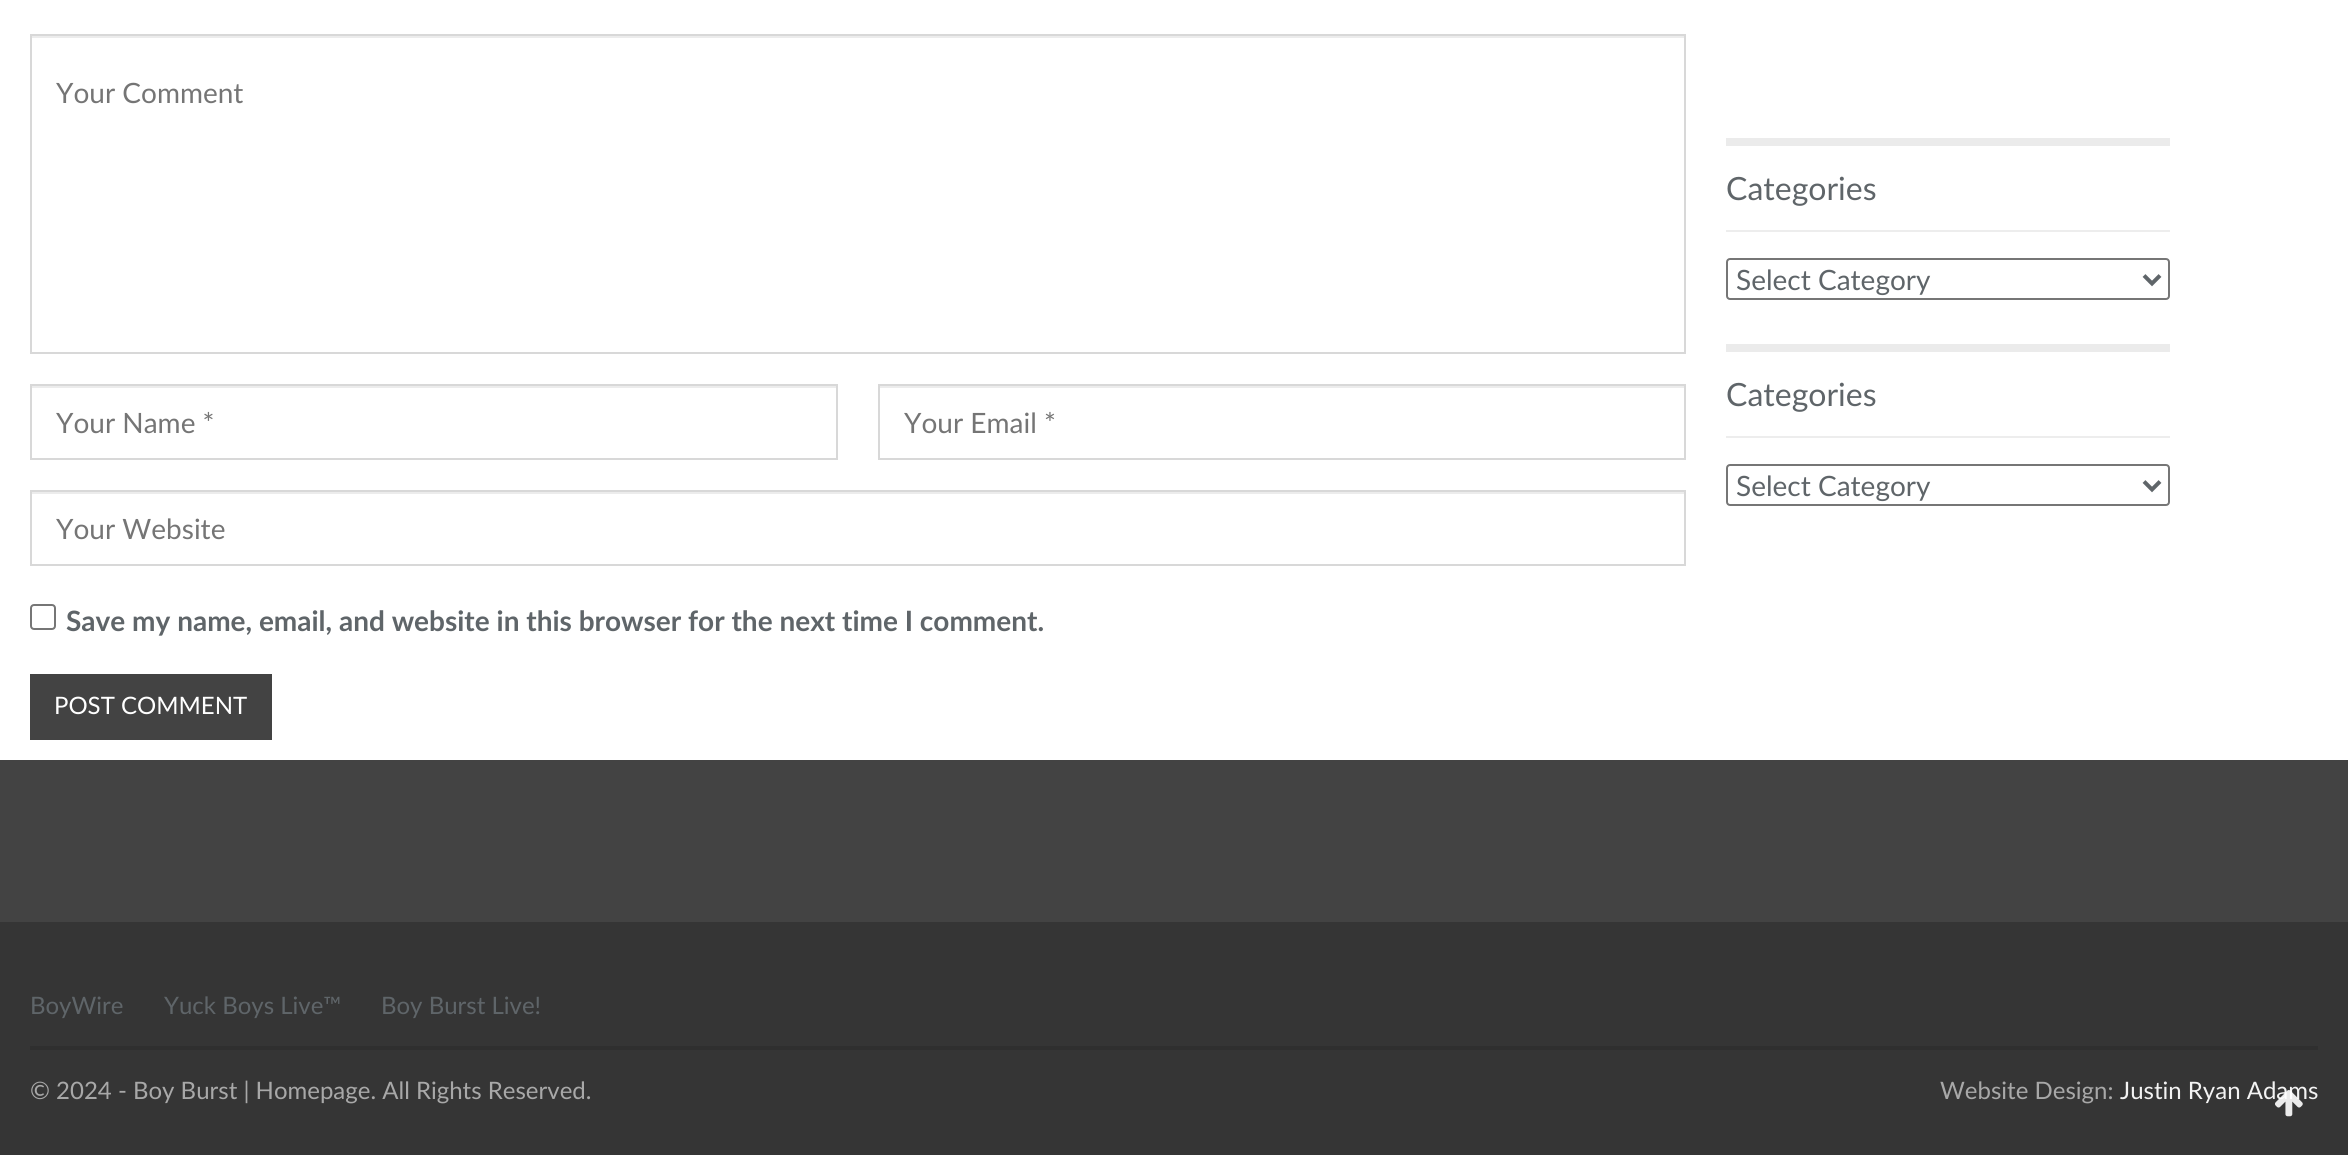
import math
import cairocffi as cairo

surface = cairo.ImageSurface(cairo.FORMAT_RGB24, 2348, 1155)
ctx = cairo.Context(surface)
options = cairo.FontOptions()
options.set_hint_metrics(cairo.HINT_METRICS_OFF)
options.set_hint_style(cairo.HINT_STYLE_NONE)
ctx.set_font_options(options)
ctx.set_miter_limit(4)


def rgb(r, g, b):
    ctx.set_source_rgb(r / 255, g / 255, b / 255)


def face(family, size, italic, bold):
    ctx.select_font_face(family, cairo.FONT_SLANT_ITALIC if italic else cairo.FONT_SLANT_NORMAL, cairo.FONT_WEIGHT_BOLD if bold else cairo.FONT_WEIGHT_NORMAL)
    ctx.set_font_size(size)


def label(x, y, s):
    ctx.move_to(x, y)
    ctx.show_text(s)


def rect(x, y, w, h):
    ctx.rectangle(x, y, w, h)
    ctx.fill()


def rrect(x, y, w, h, r):
    ctx.new_sub_path()
    for i, (u, v) in enumerate([(x + w - r, y + h - r), (x + r, y + h - r), (x + r, y + r), (x + w - r, y + r)]):
        ctx.arc(u, v, r, i * math.pi / 2, (i + 1) * math.pi / 2)
    ctx.close_path()


def image(path, x, y, w, h):
    ctx.save()
    ctx.set_source_surface(cairo.ImageSurface.create_from_png(path), x, y)
    ctx.rectangle(x, y, w, h)
    ctx.fill()
    ctx.restore()


rgb(255, 255, 255)
ctx.paint()
rgb(236, 236, 236)
rect(32, 36, 1652, 2)
ctx.rectangle(31, 35, 1654, 318)
rgb(216, 216, 216)
ctx.stroke()
face('Lato', 28, 0, 0)
rgb(117, 117, 117)
label(56, 103, 'Your Comment')
rgb(236, 236, 236)
rect(32, 386, 804, 2)
ctx.rectangle(31, 385, 806, 74)
rgb(216, 216, 216)
ctx.stroke()
rgb(117, 117, 117)
label(56, 433, 'Your Name *')
rgb(236, 236, 236)
rect(880, 386, 804, 2)
ctx.rectangle(879, 385, 806, 74)
rgb(216, 216, 216)
ctx.stroke()
rgb(117, 117, 117)
label(904, 433, 'Your Email *')
rgb(236, 236, 236)
rect(32, 492, 1652, 2)
ctx.rectangle(31, 491, 1654, 74)
rgb(216, 216, 216)
ctx.stroke()
rgb(117, 117, 117)
label(56, 539, 'Your Website')
rrect(31, 605, 24, 24, 3)
rgb(118, 118, 118)
ctx.stroke()
face('Lato', 28, 0, 1)
rgb(95, 101, 105)
label(66, 631, 'Save my name, email, and website in this browser for the next time I comment.')
rgb(67, 67, 67)
rect(30, 674, 242, 66)
face('Lato', 24, 0, 0)
rgb(255, 255, 255)
label(54, 714, 'POST COMMENT')
rgb(235, 235, 235)
rect(1726, 138, 444, 8)
face('Lato', 32, 0, 0)
rgb(95, 101, 105)
label(1726, 200, 'Categories')
rgb(237, 237, 237)
rect(1726, 230, 444, 2)
rrect(1727, 259, 442, 40, 3)
rgb(118, 118, 118)
ctx.stroke()
ctx.new_path()
ctx.move_to(2144, 275.5)
ctx.line_to(2152, 283.5)
ctx.line_to(2160, 275.5)
rgb(95, 101, 105)
ctx.set_line_width(4)
ctx.stroke()
face('Lato', 28, 0, 0)
label(1736, 290, 'Select Category')
rgb(235, 235, 235)
rect(1726, 344, 444, 8)
face('Lato', 32, 0, 0)
rgb(95, 101, 105)
label(1726, 406, 'Categories')
rgb(237, 237, 237)
rect(1726, 436, 444, 2)
rrect(1727, 465, 442, 40, 3)
rgb(118, 118, 118)
ctx.set_line_width(2)
ctx.stroke()
ctx.new_path()
ctx.move_to(2144, 481.5)
ctx.line_to(2152, 489.5)
ctx.line_to(2160, 481.5)
rgb(95, 101, 105)
ctx.set_line_width(4)
ctx.stroke()
face('Lato', 28, 0, 0)
label(1736, 496, 'Select Category')
rgb(67, 67, 67)
rect(0, 760, 2348, 162)
rgb(53, 53, 53)
rect(0, 922, 2348, 233)
rgb(47, 47, 47)
rect(30, 1046, 2288, 4)
face('Lato', 24, 0, 0)
rgb(95, 101, 105)
label(30, 1014, 'BoyWire')
label(164, 1014, 'Yuck Boys Live™')
label(381, 1014, 'Boy Burst Live!')
rgb(168, 168, 168)
label(30, 1099, '© 2024 - Boy Burst | Homepage. All Rights Reserved.')
label(1940, 1099, 'Website Design:')
rgb(243, 243, 243)
label(2120, 1099, 'Justin Ryan Adams')
image('image0.png', 2275, 1090, 28, 27)
surface.write_to_png('render.png')
